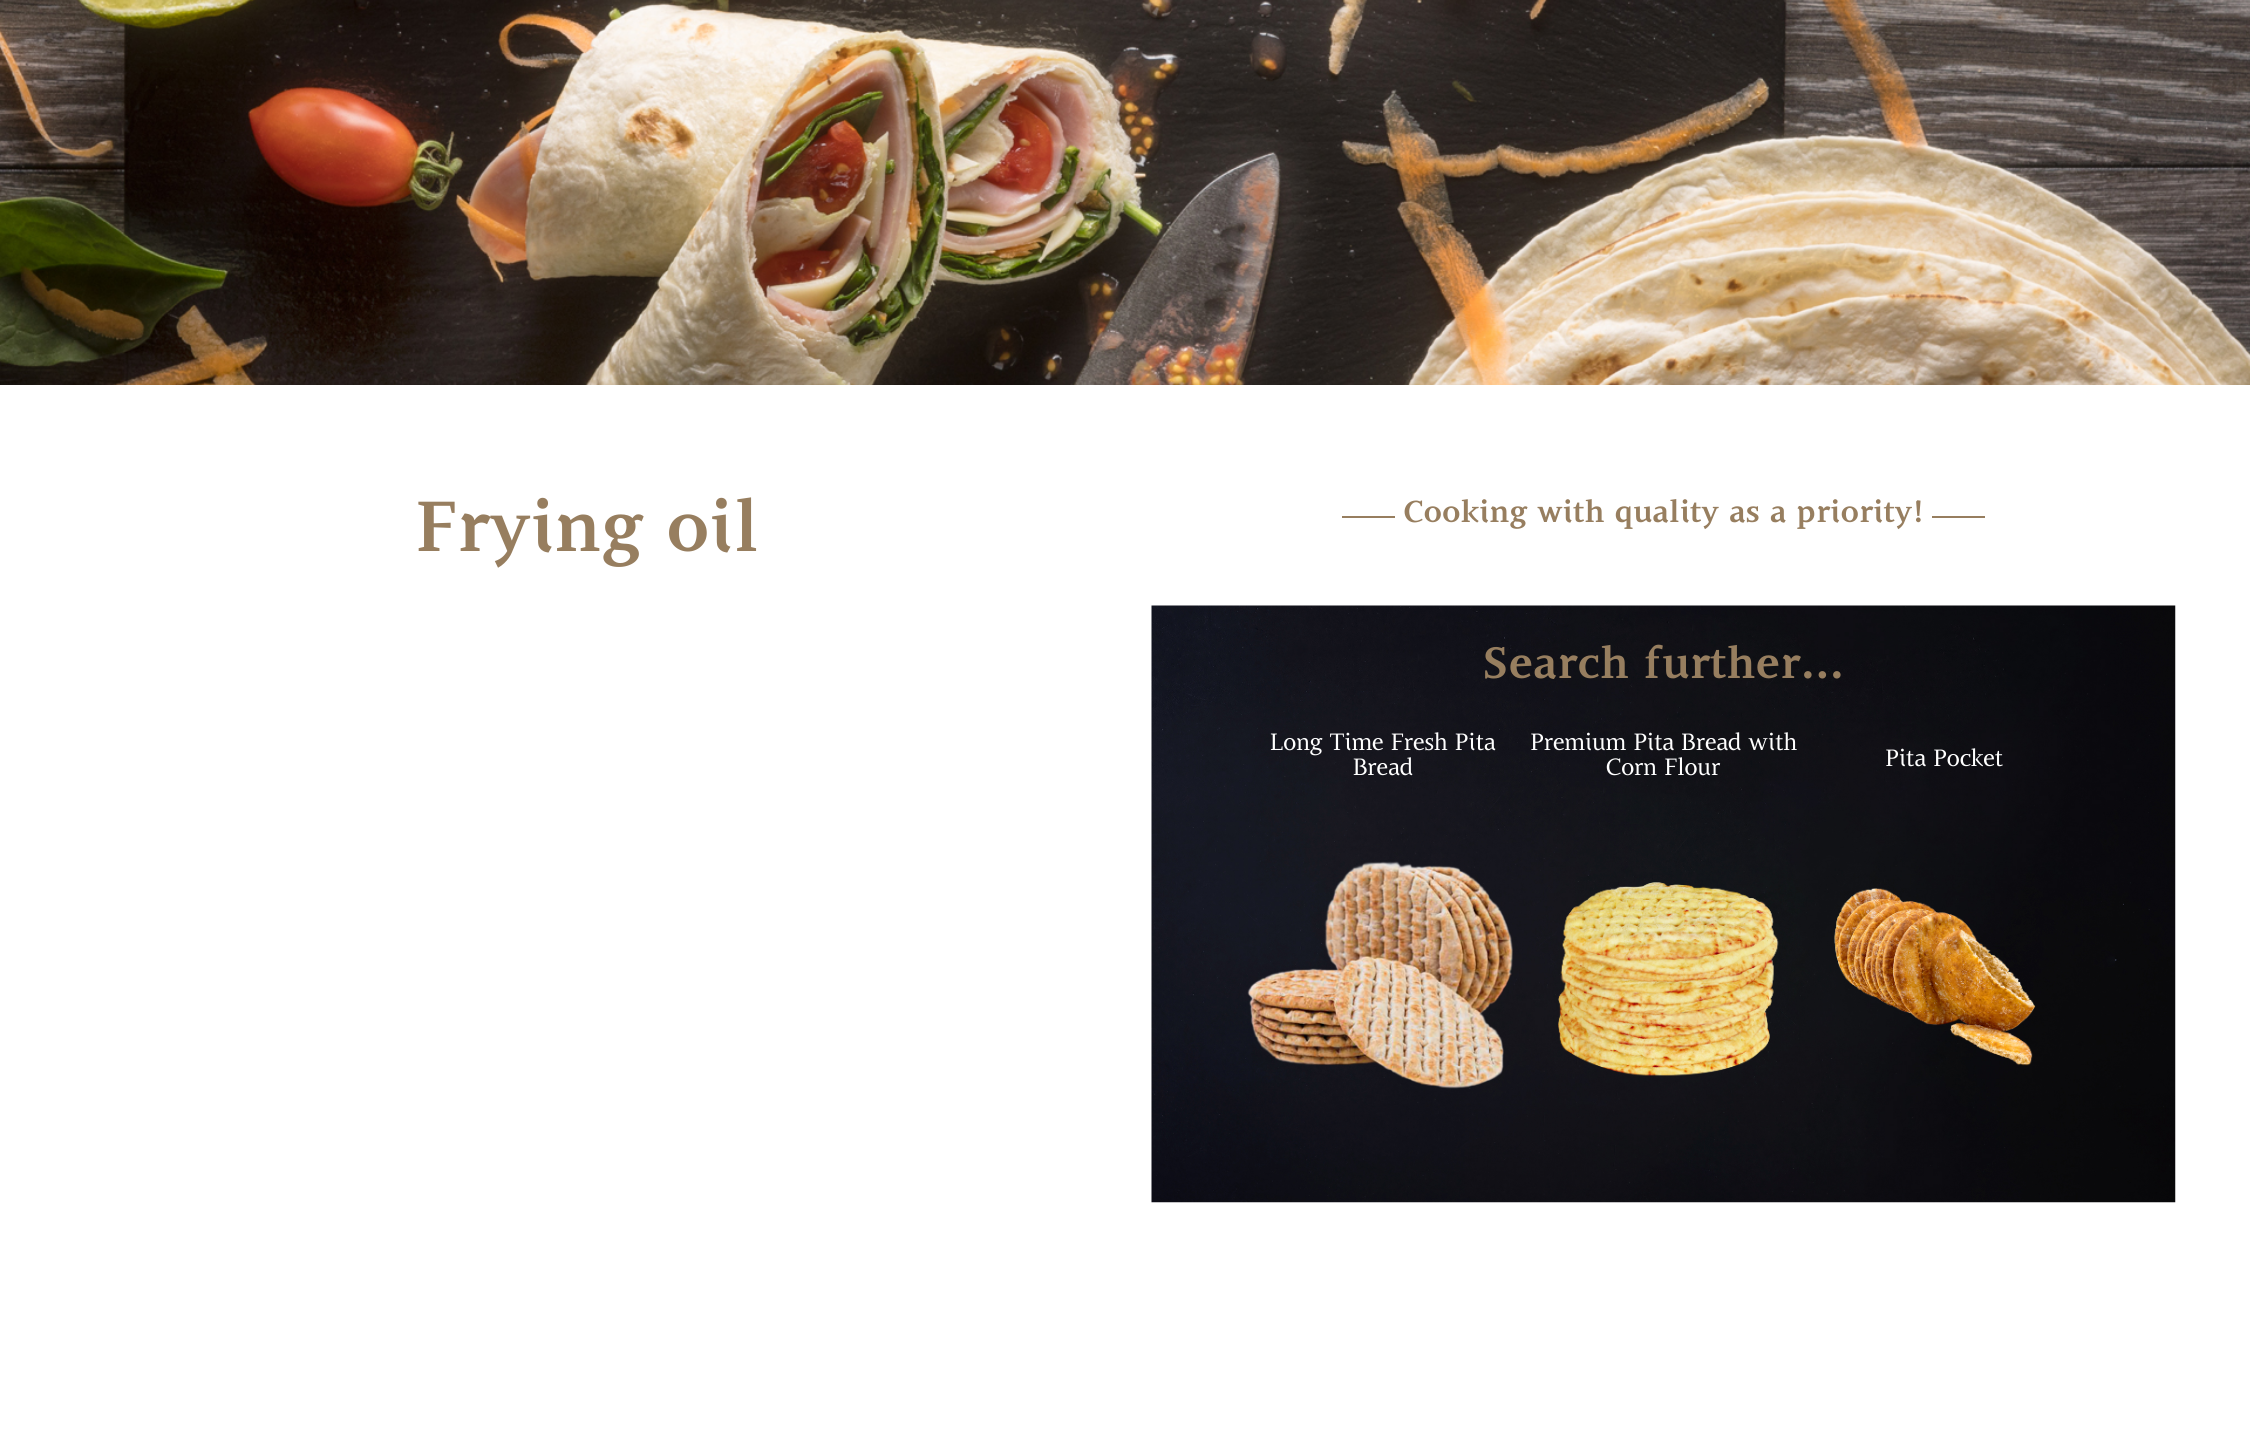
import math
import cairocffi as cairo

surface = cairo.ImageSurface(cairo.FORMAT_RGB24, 2250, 1453)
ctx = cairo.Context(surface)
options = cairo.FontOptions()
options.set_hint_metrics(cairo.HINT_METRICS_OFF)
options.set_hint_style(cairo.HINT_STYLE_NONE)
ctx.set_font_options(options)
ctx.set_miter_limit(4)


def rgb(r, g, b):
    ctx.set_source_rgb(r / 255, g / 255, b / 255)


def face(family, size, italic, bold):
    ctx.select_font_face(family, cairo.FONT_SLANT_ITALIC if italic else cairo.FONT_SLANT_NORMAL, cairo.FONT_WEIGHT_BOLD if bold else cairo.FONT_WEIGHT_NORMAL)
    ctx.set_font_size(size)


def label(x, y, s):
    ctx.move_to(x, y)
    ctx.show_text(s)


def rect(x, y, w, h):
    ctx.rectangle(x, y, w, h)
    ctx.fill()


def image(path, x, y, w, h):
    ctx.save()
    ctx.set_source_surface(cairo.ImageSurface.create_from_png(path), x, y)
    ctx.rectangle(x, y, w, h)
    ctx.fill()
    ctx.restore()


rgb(255, 255, 255)
ctx.paint()
image('image0.png', 0, 0, 2250, 385)
face('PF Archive', 73.5, 0, 1)
rgb(151, 126, 95)
label(415, 551, 'Frying oil')
rect(1342, 516, 53, 2)
face('PF Archive', 31.5, 0, 1)
label(1403, 522, 'Cooking with quality as a priority!')
rect(1932, 516, 53, 2)
image('image1.png', 1151, 605, 1025, 598)
face('PF Archive', 45.5, 0, 1)
label(1482, 678, 'Search further...')
face('PF Archive', 24.5, 0, 0)
rgb(255, 255, 255)
label(1270, 750, 'Long Time Fresh Pita')
label(1353, 775, 'Bread')
image('image2.png', 1247, 861, 266, 228)
label(1530, 750, 'Premium Pita Bread with')
label(1606, 775, 'Corn Flour')
image('image3.png', 1558, 882, 221, 194)
label(1885, 766, 'Pita Pocket')
image('image4.png', 1834, 888, 202, 178)
surface.write_to_png('render.png')
